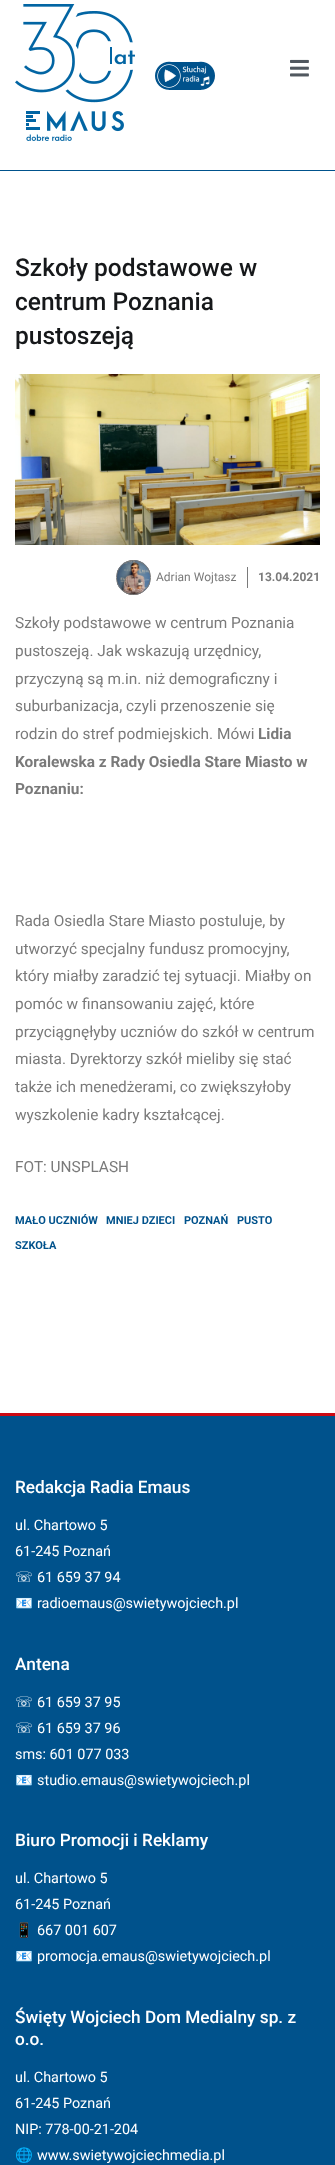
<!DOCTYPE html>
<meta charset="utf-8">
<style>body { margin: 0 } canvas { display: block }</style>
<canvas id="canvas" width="335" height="2165"></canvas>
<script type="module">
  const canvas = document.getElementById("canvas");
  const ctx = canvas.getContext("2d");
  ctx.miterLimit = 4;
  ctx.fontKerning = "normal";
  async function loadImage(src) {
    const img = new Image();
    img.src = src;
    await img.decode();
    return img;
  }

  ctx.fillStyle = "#ffffff";
  ctx.fillRect(0, 0, 335, 2165);
  ctx.fillStyle = "#00528c";
  ctx.fillRect(0, 170, 335, 1);
  ctx.drawImage(await loadImage("img1.png"), 15, 4, 120, 137);
  ctx.drawImage(await loadImage("img2.png"), 155, 61, 60, 29);
  ctx.drawImage(await loadImage("img3.png"), 290, 59, 19, 18);
  ctx.font = "500 24.5px Roboto";
  ctx.fillStyle = "#16181a";
  ctx.fillText("Szkoły podstawowe w", 15, 276);
  ctx.fillText("centrum Poznania", 15, 310);
  ctx.fillText("pustoszeją", 15, 344);
  ctx.drawImage(await loadImage("img4.png"), 15, 374, 305, 171);
  ctx.drawImage(await loadImage("img5.png"), 117, 560, 33, 35);
  ctx.beginPath();
  ctx.arc(133.5, 577.5, 17, 0, Math.PI * 2);
  ctx.strokeStyle = "#7a7a7a";
  ctx.stroke();
  ctx.fillStyle = "#7a7a7a";
  ctx.fillRect(247, 567, 1, 21);
  ctx.font = "12px Roboto";
  ctx.fillText("Adrian Wojtasz", 156, 581);
  ctx.font = "bold 12px Roboto";
  ctx.fillText("13.04.2021", 258, 581);
  ctx.font = "15.4px Roboto";
  ctx.fillText("Szkoły podstawowe w centrum Poznania", 15, 628);
  ctx.fillText("pustoszeją. Jak wskazują urzędnicy,", 15, 656);
  ctx.fillText("przyczyną są m.in. niż demograficzny i", 15, 684);
  ctx.fillText("suburbanizacja, czyli przenoszenie się", 15, 711);
  ctx.fillText("rodzin do stref podmiejskich. Mówi", 15, 739);
  ctx.font = "bold 15.4px Roboto";
  ctx.fillText("Lidia", 258, 739);
  ctx.fillText("Koralewska z Rady Osiedla Stare Miasto w", 15, 767);
  ctx.fillText("Poznaniu:", 15, 794);
  ctx.font = "15.4px Roboto";
  ctx.fillText("Rada Osiedla Stare Miasto postuluje, by", 15, 926);
  ctx.fillText("utworzyć specjalny fundusz promocyjny,", 15, 954);
  ctx.fillText("który miałby zaradzić tej sytuacji. Miałby on", 15, 981);
  ctx.fillText("pomóc w finansowaniu zajęć, które", 15, 1009);
  ctx.fillText("przyciągnęłyby uczniów do szkół w centrum", 15, 1037);
  ctx.fillText("miasta. Dyrektorzy szkół mieliby się stać", 15, 1064);
  ctx.fillText("także ich menedżerami, co zwiększyłoby", 15, 1092);
  ctx.fillText("wyszkolenie kadry kształcącej.", 15, 1120);
  ctx.fillText("FOT: UNSPLASH", 15, 1172);
  ctx.font = "bold 11px Roboto";
  ctx.fillStyle = "#00528c";
  ctx.fillText("MAŁO UCZNIÓW", 15, 1224);
  ctx.fillText("MNIEJ DZIECI", 106, 1224);
  ctx.fillText("POZNAŃ", 184, 1224);
  ctx.fillText("PUSTO", 237, 1224);
  ctx.fillText("SZKOŁA", 15, 1249);
  ctx.fillRect(0, 1416, 335, 749);
  ctx.fillStyle = "#cd0913";
  ctx.fillRect(0, 1413, 335, 3);
  ctx.font = "500 17.25px Roboto";
  ctx.fillStyle = "#ffffff";
  ctx.fillText("Redakcja Radia Emaus", 15, 1493);
  ctx.font = "14.4px Roboto";
  ctx.fillText("ul. Chartowo 5", 15, 1530);
  ctx.fillText("61-245 Poznań", 15, 1556);
  ctx.font = "14.4px DejaVu Sans";
  ctx.fillText("☏", 15, 1582);
  ctx.font = "14.4px Roboto";
  ctx.fillText("61 659 37 94", 37, 1582);
  ctx.font = "14.4px Noto Color Emoji";
  ctx.fillText("📧", 15, 1608);
  ctx.font = "14.4px Roboto";
  ctx.fillText("radioemaus@swietywojciech.pl", 37, 1608);
  ctx.font = "500 17.25px Roboto";
  ctx.fillText("Antena", 15, 1670);
  ctx.font = "14.4px DejaVu Sans";
  ctx.fillText("☏", 15, 1707);
  ctx.font = "14.4px Roboto";
  ctx.fillText("61 659 37 95", 37, 1707);
  ctx.font = "14.4px DejaVu Sans";
  ctx.fillText("☏", 15, 1733);
  ctx.font = "14.4px Roboto";
  ctx.fillText("61 659 37 96", 37, 1733);
  ctx.fillText("sms: 601 077 033", 15, 1759);
  ctx.font = "14.4px Noto Color Emoji";
  ctx.fillText("📧", 15, 1785);
  ctx.font = "14.4px Roboto";
  ctx.fillText("studio.emaus@swietywojciech.pl", 37, 1785);
  ctx.font = "500 17.25px Roboto";
  ctx.fillText("Biuro Promocji i Reklamy", 15, 1846);
  ctx.font = "14.4px Roboto";
  ctx.fillText("ul. Chartowo 5", 15, 1883);
  ctx.fillText("61-245 Poznań", 15, 1909);
  ctx.font = "14.4px Noto Color Emoji";
  ctx.fillText("📱", 15, 1935);
  ctx.font = "14.4px Roboto";
  ctx.fillText("667 001 607", 37, 1935);
  ctx.font = "14.4px Noto Color Emoji";
  ctx.fillText("📧", 15, 1961);
  ctx.font = "14.4px Roboto";
  ctx.fillText("promocja.emaus@swietywojciech.pl", 37, 1961);
  ctx.font = "500 17.25px Roboto";
  ctx.fillText("Święty Wojciech Dom Medialny sp. z", 15, 2023);
  ctx.fillText("o.o.", 15, 2045);
  ctx.font = "14.4px Roboto";
  ctx.fillText("ul. Chartowo 5", 15, 2082);
  ctx.fillText("61-245 Poznań", 15, 2108);
  ctx.fillText("NIP: 778-00-21-204", 15, 2134);
  ctx.font = "14.4px Noto Color Emoji";
  ctx.fillText("🌐", 15, 2160);
  ctx.font = "14.4px Roboto";
  ctx.fillText("www.swietywojciechmedia.pl", 37, 2160);
</script>
